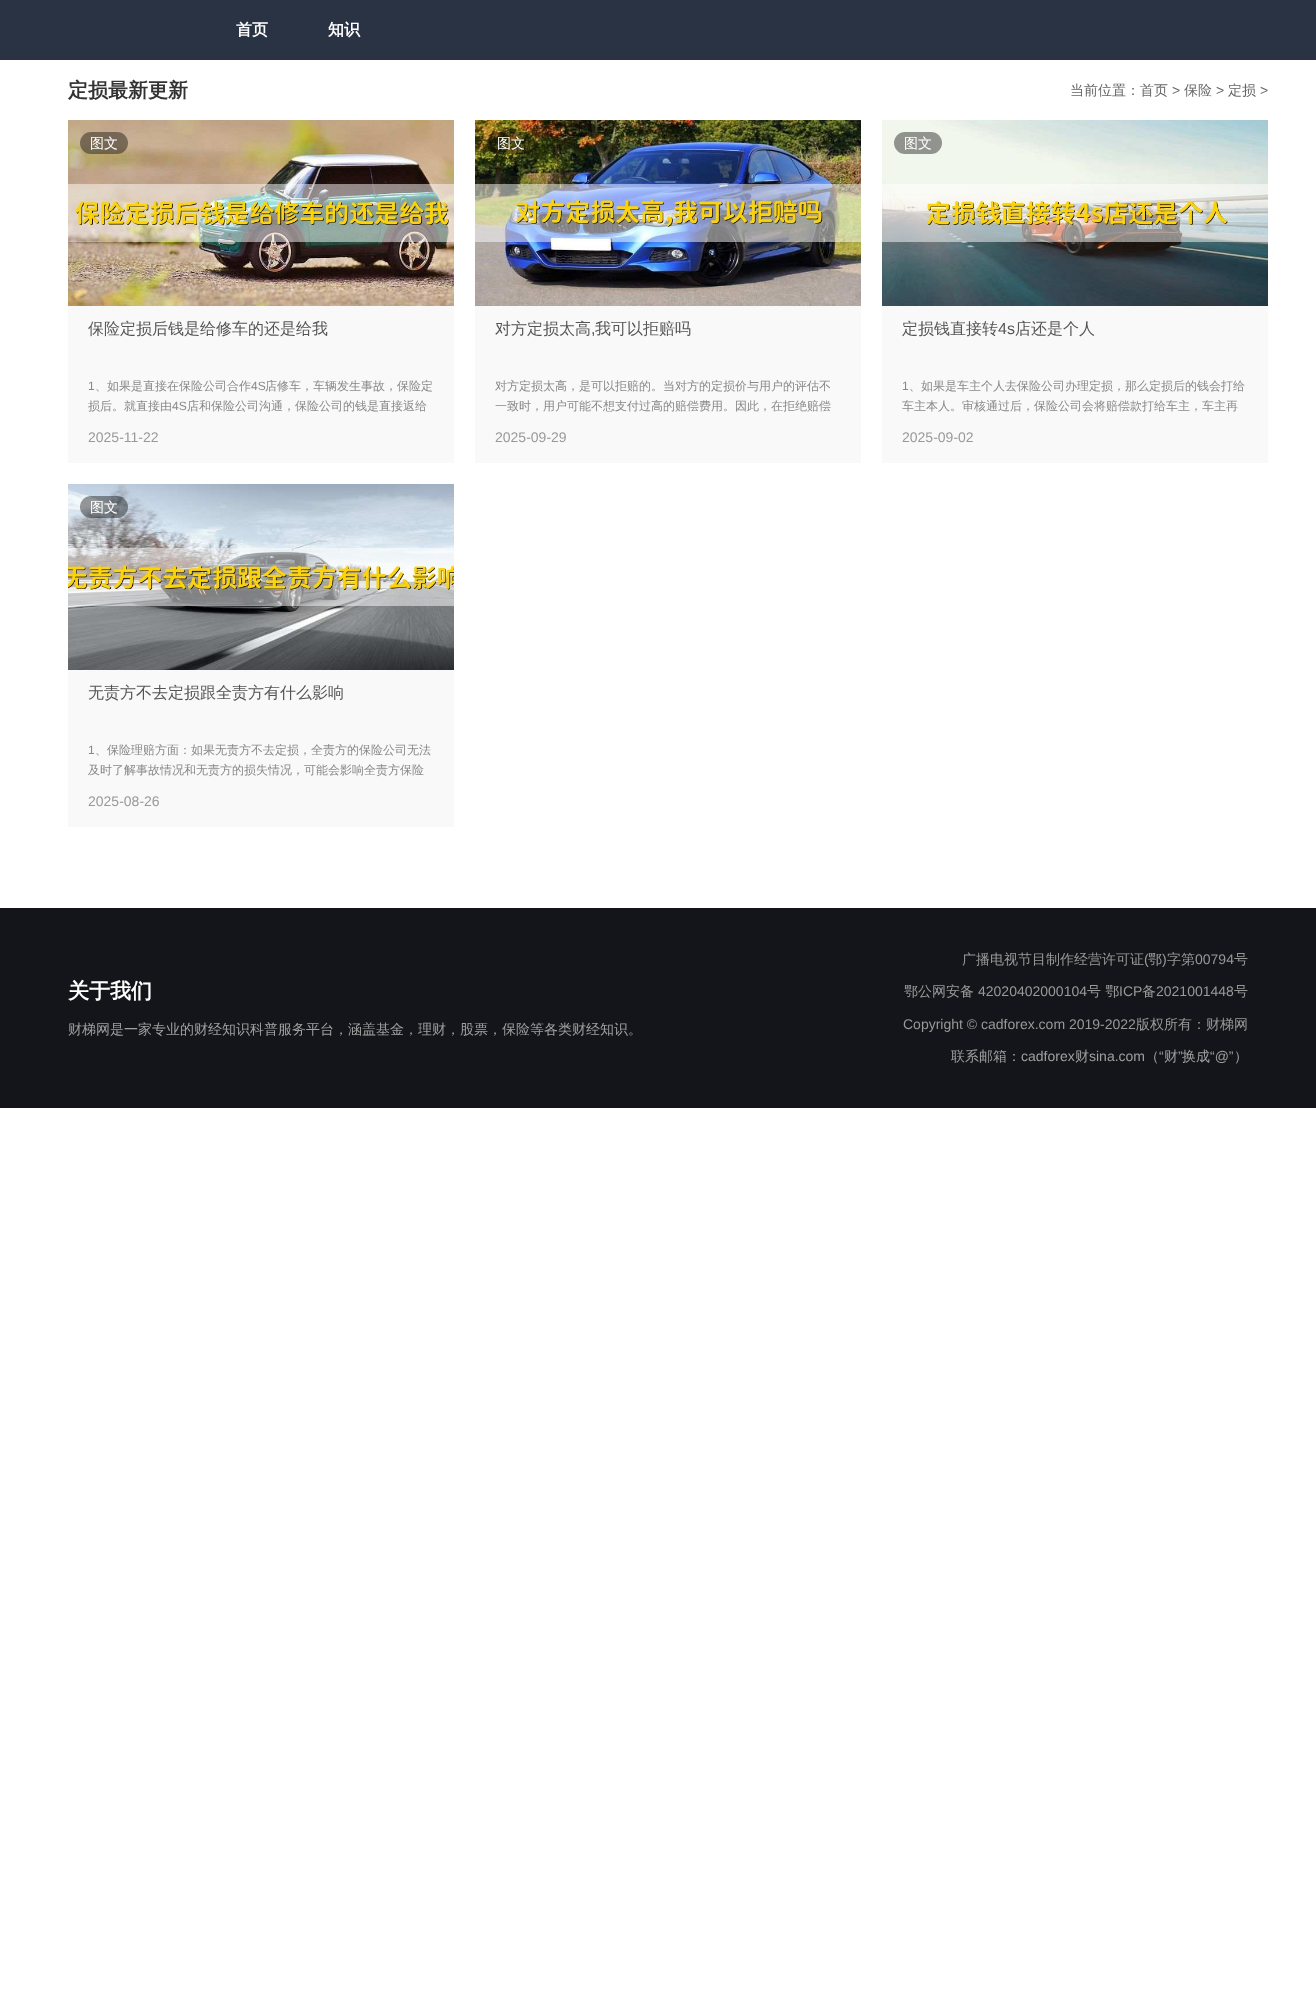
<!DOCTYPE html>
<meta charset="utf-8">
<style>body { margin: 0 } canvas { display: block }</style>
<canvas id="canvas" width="1316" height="1995"></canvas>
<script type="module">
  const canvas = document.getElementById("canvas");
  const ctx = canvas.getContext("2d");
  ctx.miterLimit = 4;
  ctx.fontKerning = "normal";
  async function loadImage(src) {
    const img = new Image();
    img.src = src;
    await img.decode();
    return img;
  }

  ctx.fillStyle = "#ffffff";
  ctx.fillRect(0, 0, 1316, 1995);
  ctx.fillStyle = "#2a3343";
  ctx.fillRect(0, 0, 1316, 60);
  ctx.font = "bold 16px WenQuanYi Zen Hei";
  ctx.fillStyle = "#ffffff";
  ctx.fillText("首页", 236, 35);
  ctx.fillText("知识", 328, 35);
  ctx.font = "bold 20px WenQuanYi Zen Hei";
  ctx.fillStyle = "#333333";
  ctx.fillText("定损最新更新", 68, 97);
  ctx.font = "500 14px WenQuanYi Zen Hei";
  ctx.fillStyle = "#666666";
  ctx.fillText("当前位置：首页", 1070, 95);
  ctx.font = "14px Liberation Sans";
  ctx.fillText(">", 1172, 95);
  ctx.font = "500 14px WenQuanYi Zen Hei";
  ctx.fillText("保险", 1184, 95);
  ctx.font = "14px Liberation Sans";
  ctx.fillText(">", 1216, 95);
  ctx.font = "500 14px WenQuanYi Zen Hei";
  ctx.fillText("定损", 1228, 95);
  ctx.font = "14px Liberation Sans";
  ctx.fillText(">", 1260, 95);
  ctx.fillStyle = "#f9f9f9";
  ctx.fillRect(68, 306, 386, 157);
  ctx.drawImage(await loadImage("img1.png"), 68, 120, 386, 186);
  ctx.fillStyle = "rgba(0, 0, 0, 0.4)";
  ctx.beginPath();
  ctx.roundRect(80, 132, 48, 22, 11);
  ctx.fill();
  ctx.font = "500 14px WenQuanYi Zen Hei";
  ctx.fillStyle = "#ffffff";
  ctx.fillText("图文", 90, 148);
  ctx.font = "500 16px WenQuanYi Zen Hei";
  ctx.fillStyle = "#555555";
  ctx.fillText("保险定损后钱是给修车的还是给我", 88, 334);
  ctx.font = "12px Liberation Sans";
  ctx.fillStyle = "#888888";
  ctx.fillText("1", 88, 390);
  ctx.font = "500 12px WenQuanYi Zen Hei";
  ctx.fillText("、如果是直接在保险公司合作", 95, 390);
  ctx.font = "12px Liberation Sans";
  ctx.fillText("4S", 251, 390);
  ctx.font = "500 12px WenQuanYi Zen Hei";
  ctx.fillText("店修车，车辆发生事故，保险定", 265, 390);
  ctx.fillText("损后。就直接由", 88, 410);
  ctx.font = "12px Liberation Sans";
  ctx.fillText("4S", 172, 410);
  ctx.font = "500 12px WenQuanYi Zen Hei";
  ctx.fillText("店和保险公司沟通，保险公司的钱是直接返给", 187, 410);
  ctx.font = "14px Liberation Sans";
  ctx.fillStyle = "#999999";
  ctx.fillText("2025-11-22", 88, 442);
  ctx.fillStyle = "#f9f9f9";
  ctx.fillRect(475, 306, 386, 157);
  ctx.drawImage(await loadImage("img2.png"), 475, 120, 386, 186);
  ctx.fillStyle = "rgba(0, 0, 0, 0.4)";
  ctx.beginPath();
  ctx.roundRect(487, 132, 48, 22, 11);
  ctx.fill();
  ctx.font = "500 14px WenQuanYi Zen Hei";
  ctx.fillStyle = "#ffffff";
  ctx.fillText("图文", 497, 148);
  ctx.font = "500 16px WenQuanYi Zen Hei";
  ctx.fillStyle = "#555555";
  ctx.fillText("对方定损太高", 495, 334);
  ctx.font = "16px Liberation Sans";
  ctx.fillText(",", 591, 334);
  ctx.font = "500 16px WenQuanYi Zen Hei";
  ctx.fillText("我可以拒赔吗", 595, 334);
  ctx.font = "500 12px WenQuanYi Zen Hei";
  ctx.fillStyle = "#888888";
  ctx.fillText("对方定损太高，是可以拒赔的。当对方的定损价与用户的评估不", 495, 390);
  ctx.fillText("一致时，用户可能不想支付过高的赔偿费用。因此，在拒绝赔偿", 495, 410);
  ctx.font = "14px Liberation Sans";
  ctx.fillStyle = "#999999";
  ctx.fillText("2025-09-29", 495, 442);
  ctx.fillStyle = "#f9f9f9";
  ctx.fillRect(882, 306, 386, 157);
  ctx.drawImage(await loadImage("img3.png"), 882, 120, 386, 186);
  ctx.fillStyle = "#91948e";
  ctx.beginPath();
  ctx.roundRect(894, 132, 48, 22, 11);
  ctx.fill();
  ctx.font = "500 14px WenQuanYi Zen Hei";
  ctx.fillStyle = "#ffffff";
  ctx.fillText("图文", 904, 148);
  ctx.font = "500 16px WenQuanYi Zen Hei";
  ctx.fillStyle = "#555555";
  ctx.fillText("定损钱直接转", 902, 334);
  ctx.font = "16px Liberation Sans";
  ctx.fillText("4s", 998, 334);
  ctx.font = "500 16px WenQuanYi Zen Hei";
  ctx.fillText("店还是个人", 1015, 334);
  ctx.font = "12px Liberation Sans";
  ctx.fillStyle = "#888888";
  ctx.fillText("1", 902, 390);
  ctx.font = "500 12px WenQuanYi Zen Hei";
  ctx.fillText("、如果是车主个人去保险公司办理定损，那么定损后的钱会打给", 909, 390);
  ctx.fillText("车主本人。审核通过后，保险公司会将赔偿款打给车主，车主再", 902, 410);
  ctx.font = "14px Liberation Sans";
  ctx.fillStyle = "#999999";
  ctx.fillText("2025-09-02", 902, 442);
  ctx.fillStyle = "#f9f9f9";
  ctx.fillRect(68, 670, 386, 157);
  ctx.drawImage(await loadImage("img4.png"), 68, 484, 386, 186);
  ctx.fillStyle = "rgba(0, 0, 0, 0.4)";
  ctx.beginPath();
  ctx.roundRect(80, 496, 48, 22, 11);
  ctx.fill();
  ctx.font = "500 14px WenQuanYi Zen Hei";
  ctx.fillStyle = "#ffffff";
  ctx.fillText("图文", 90, 512);
  ctx.font = "500 16px WenQuanYi Zen Hei";
  ctx.fillStyle = "#555555";
  ctx.fillText("无责方不去定损跟全责方有什么影响", 88, 698);
  ctx.font = "12px Liberation Sans";
  ctx.fillStyle = "#888888";
  ctx.fillText("1", 88, 754);
  ctx.font = "500 12px WenQuanYi Zen Hei";
  ctx.fillText("、保险理赔方面：如果无责方不去定损，全责方的保险公司无法", 95, 754);
  ctx.fillText("及时了解事故情况和无责方的损失情况，可能会影响全责方保险", 88, 774);
  ctx.font = "14px Liberation Sans";
  ctx.fillStyle = "#999999";
  ctx.fillText("2025-08-26", 88, 806);
  ctx.fillStyle = "#14151a";
  ctx.fillRect(0, 908, 1316, 200);
  ctx.font = "bold 21px WenQuanYi Zen Hei";
  ctx.fillStyle = "#ffffff";
  ctx.fillText("关于我们", 68, 998);
  ctx.font = "500 14px WenQuanYi Zen Hei";
  ctx.fillStyle = "#a0a0a1";
  ctx.fillText("财梯网是一家专业的财经知识科普服务平台，涵盖基金，理财，股票，保险等各类财经知识。", 68, 1034);
  ctx.fillStyle = "#999999";
  ctx.fillText("广播电视节目制作经营许可证", 962, 964);
  ctx.font = "14px Liberation Sans";
  ctx.fillText("(", 1144, 964);
  ctx.font = "500 14px WenQuanYi Zen Hei";
  ctx.fillText("鄂", 1148, 964);
  ctx.font = "14px Liberation Sans";
  ctx.fillText(")", 1162, 964);
  ctx.font = "500 14px WenQuanYi Zen Hei";
  ctx.fillText("字第", 1167, 964);
  ctx.font = "14px Liberation Sans";
  ctx.fillText("00794", 1195, 964);
  ctx.font = "500 14px WenQuanYi Zen Hei";
  ctx.fillText("号", 1234, 964);
  ctx.fillText("鄂公网安备", 904, 996);
  ctx.font = "14px Liberation Sans";
  ctx.fillText("42020402000104", 978, 996);
  ctx.font = "500 14px WenQuanYi Zen Hei";
  ctx.fillText("号 鄂", 1087, 996);
  ctx.font = "14px Liberation Sans";
  ctx.fillText("ICP", 1119, 996);
  ctx.font = "500 14px WenQuanYi Zen Hei";
  ctx.fillText("备", 1142, 996);
  ctx.font = "14px Liberation Sans";
  ctx.fillText("2021001448", 1156, 996);
  ctx.font = "500 14px WenQuanYi Zen Hei";
  ctx.fillText("号", 1234, 996);
  ctx.font = "14px Liberation Sans";
  ctx.fillText("Copyright © cadforex.com 2019-2022", 903, 1029);
  ctx.font = "500 14px WenQuanYi Zen Hei";
  ctx.fillText("版权所有：财梯网", 1136, 1029);
  ctx.fillStyle = "#a0a0a1";
  ctx.fillText("联系邮箱：", 951, 1061);
  ctx.font = "14px Liberation Sans";
  ctx.fillText("cadforex", 1021, 1061);
  ctx.font = "500 14px WenQuanYi Zen Hei";
  ctx.fillText("财", 1075, 1061);
  ctx.font = "14px Liberation Sans";
  ctx.fillText("sina.com", 1089, 1061);
  ctx.font = "500 14px WenQuanYi Zen Hei";
  ctx.fillText("（", 1145, 1061);
  ctx.font = "14px Liberation Sans";
  ctx.fillText("“", 1159, 1061);
  ctx.font = "500 14px WenQuanYi Zen Hei";
  ctx.fillText("财", 1164, 1061);
  ctx.font = "14px Liberation Sans";
  ctx.fillText("”", 1178, 1061);
  ctx.font = "500 14px WenQuanYi Zen Hei";
  ctx.fillText("换成", 1182, 1061);
  ctx.font = "14px Liberation Sans";
  ctx.fillText("“@”", 1210, 1061);
  ctx.font = "500 14px WenQuanYi Zen Hei";
  ctx.fillText("）", 1234, 1061);
</script>
